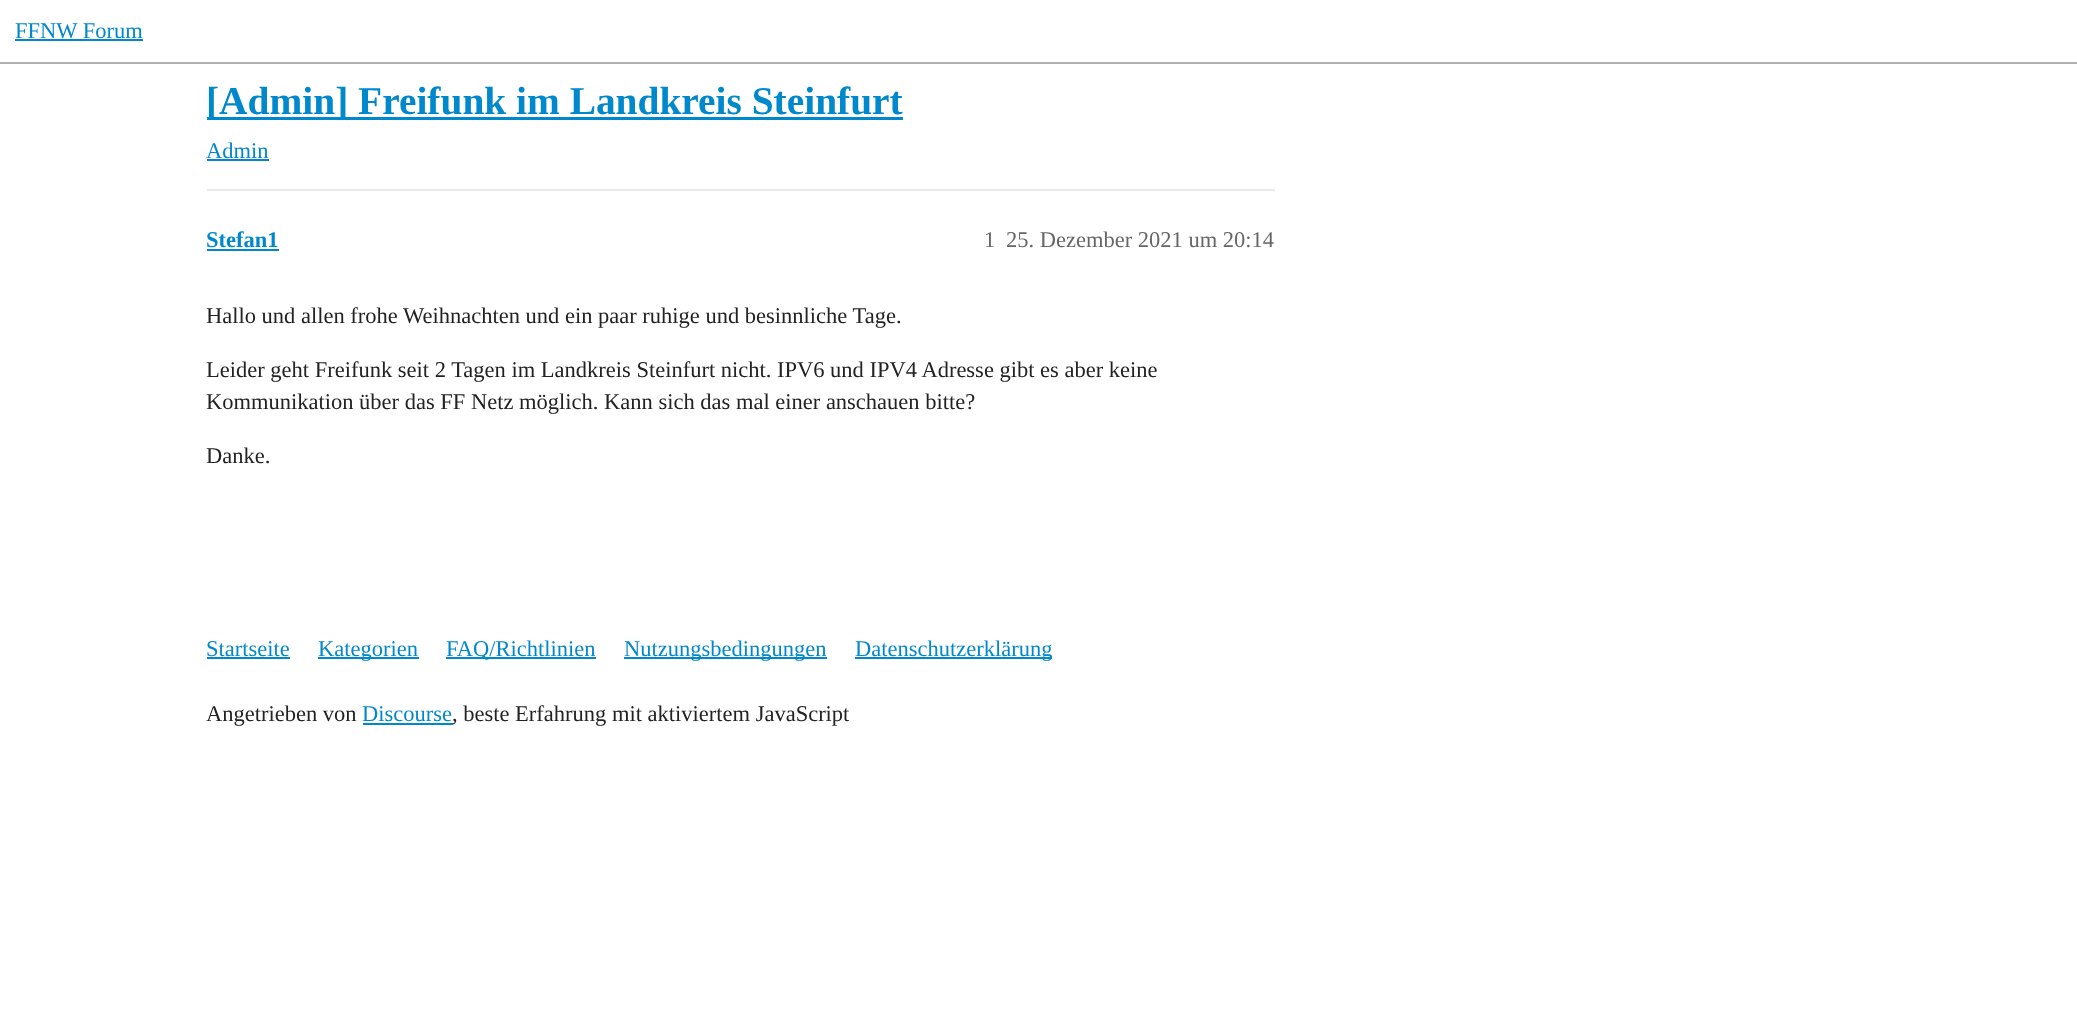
<!DOCTYPE html>
<meta charset="utf-8">
<style>body { margin: 0 } canvas { display: block }</style>
<canvas id="canvas" width="2077" height="1036"></canvas>
<script type="module">
  const canvas = document.getElementById("canvas");
  const ctx = canvas.getContext("2d");
  ctx.miterLimit = 4;
  ctx.fontKerning = "normal";

  ctx.fillStyle = "#ffffff";
  ctx.fillRect(0, 0, 2077, 1036);
  ctx.fillStyle = "#afafaf";
  ctx.fillRect(0, 62, 2077, 2);
  ctx.font = "22.5px Liberation Serif";
  ctx.fillStyle = "#0088cc";
  ctx.fillText("FFNW Forum", 15, 38);
  ctx.fillRect(15, 39, 128, 2);
  ctx.fillRect(207, 117, 696, 3);
  ctx.font = "bold 39.4px Liberation Serif";
  ctx.fillText("[Admin] Freifunk im Landkreis Steinfurt", 206, 114);
  ctx.font = "22.5px Liberation Serif";
  ctx.fillText("Admin", 206, 158);
  ctx.fillRect(207, 159, 62, 2);
  ctx.fillStyle = "#e9e9e9";
  ctx.fillRect(207, 189, 1068, 2);
  ctx.font = "bold 22.5px Liberation Serif";
  ctx.fillStyle = "#0088cc";
  ctx.fillText("Stefan1", 206, 247);
  ctx.fillRect(207, 249, 72, 2);
  ctx.font = "22.5px Liberation Serif";
  ctx.fillStyle = "#666666";
  ctx.fillText("1", 984, 247);
  ctx.fillText("25. Dezember 2021 um 20:14", 1006, 247);
  ctx.fillStyle = "#222222";
  ctx.fillText("Hallo und allen frohe Weihnachten und ein paar ruhige und besinnliche Tage.", 206, 323);
  ctx.fillText("Leider geht Freifunk seit 2 Tagen im Landkreis Steinfurt nicht. IPV6 und IPV4 Adresse gibt es aber keine", 206, 377);
  ctx.fillText("Kommunikation über das FF Netz möglich. Kann sich das mal einer anschauen bitte?", 206, 409);
  ctx.fillText("Danke.", 206, 463);
  ctx.fillStyle = "#0088cc";
  ctx.fillText("Startseite", 206, 656);
  ctx.fillRect(207, 657, 83, 2);
  ctx.fillRect(318, 657, 101, 2);
  ctx.fillText("Kategorien", 318, 656);
  ctx.fillRect(446, 657, 150, 2);
  ctx.fillText("FAQ/Richtlinien", 446, 656);
  ctx.fillRect(624, 657, 203, 2);
  ctx.fillText("Nutzungsbedingungen", 624, 656);
  ctx.fillRect(855, 657, 197, 2);
  ctx.fillText("Datenschutzerklärung", 855, 656);
  ctx.fillStyle = "#222222";
  ctx.fillText("Angetrieben von", 206, 721);
  ctx.fillStyle = "#0088cc";
  ctx.fillText("Discourse", 362, 721);
  ctx.fillRect(363, 723, 90, 2);
  ctx.fillStyle = "#222222";
  ctx.fillText(", beste Erfahrung mit aktiviertem JavaScript", 452, 721);
</script>
